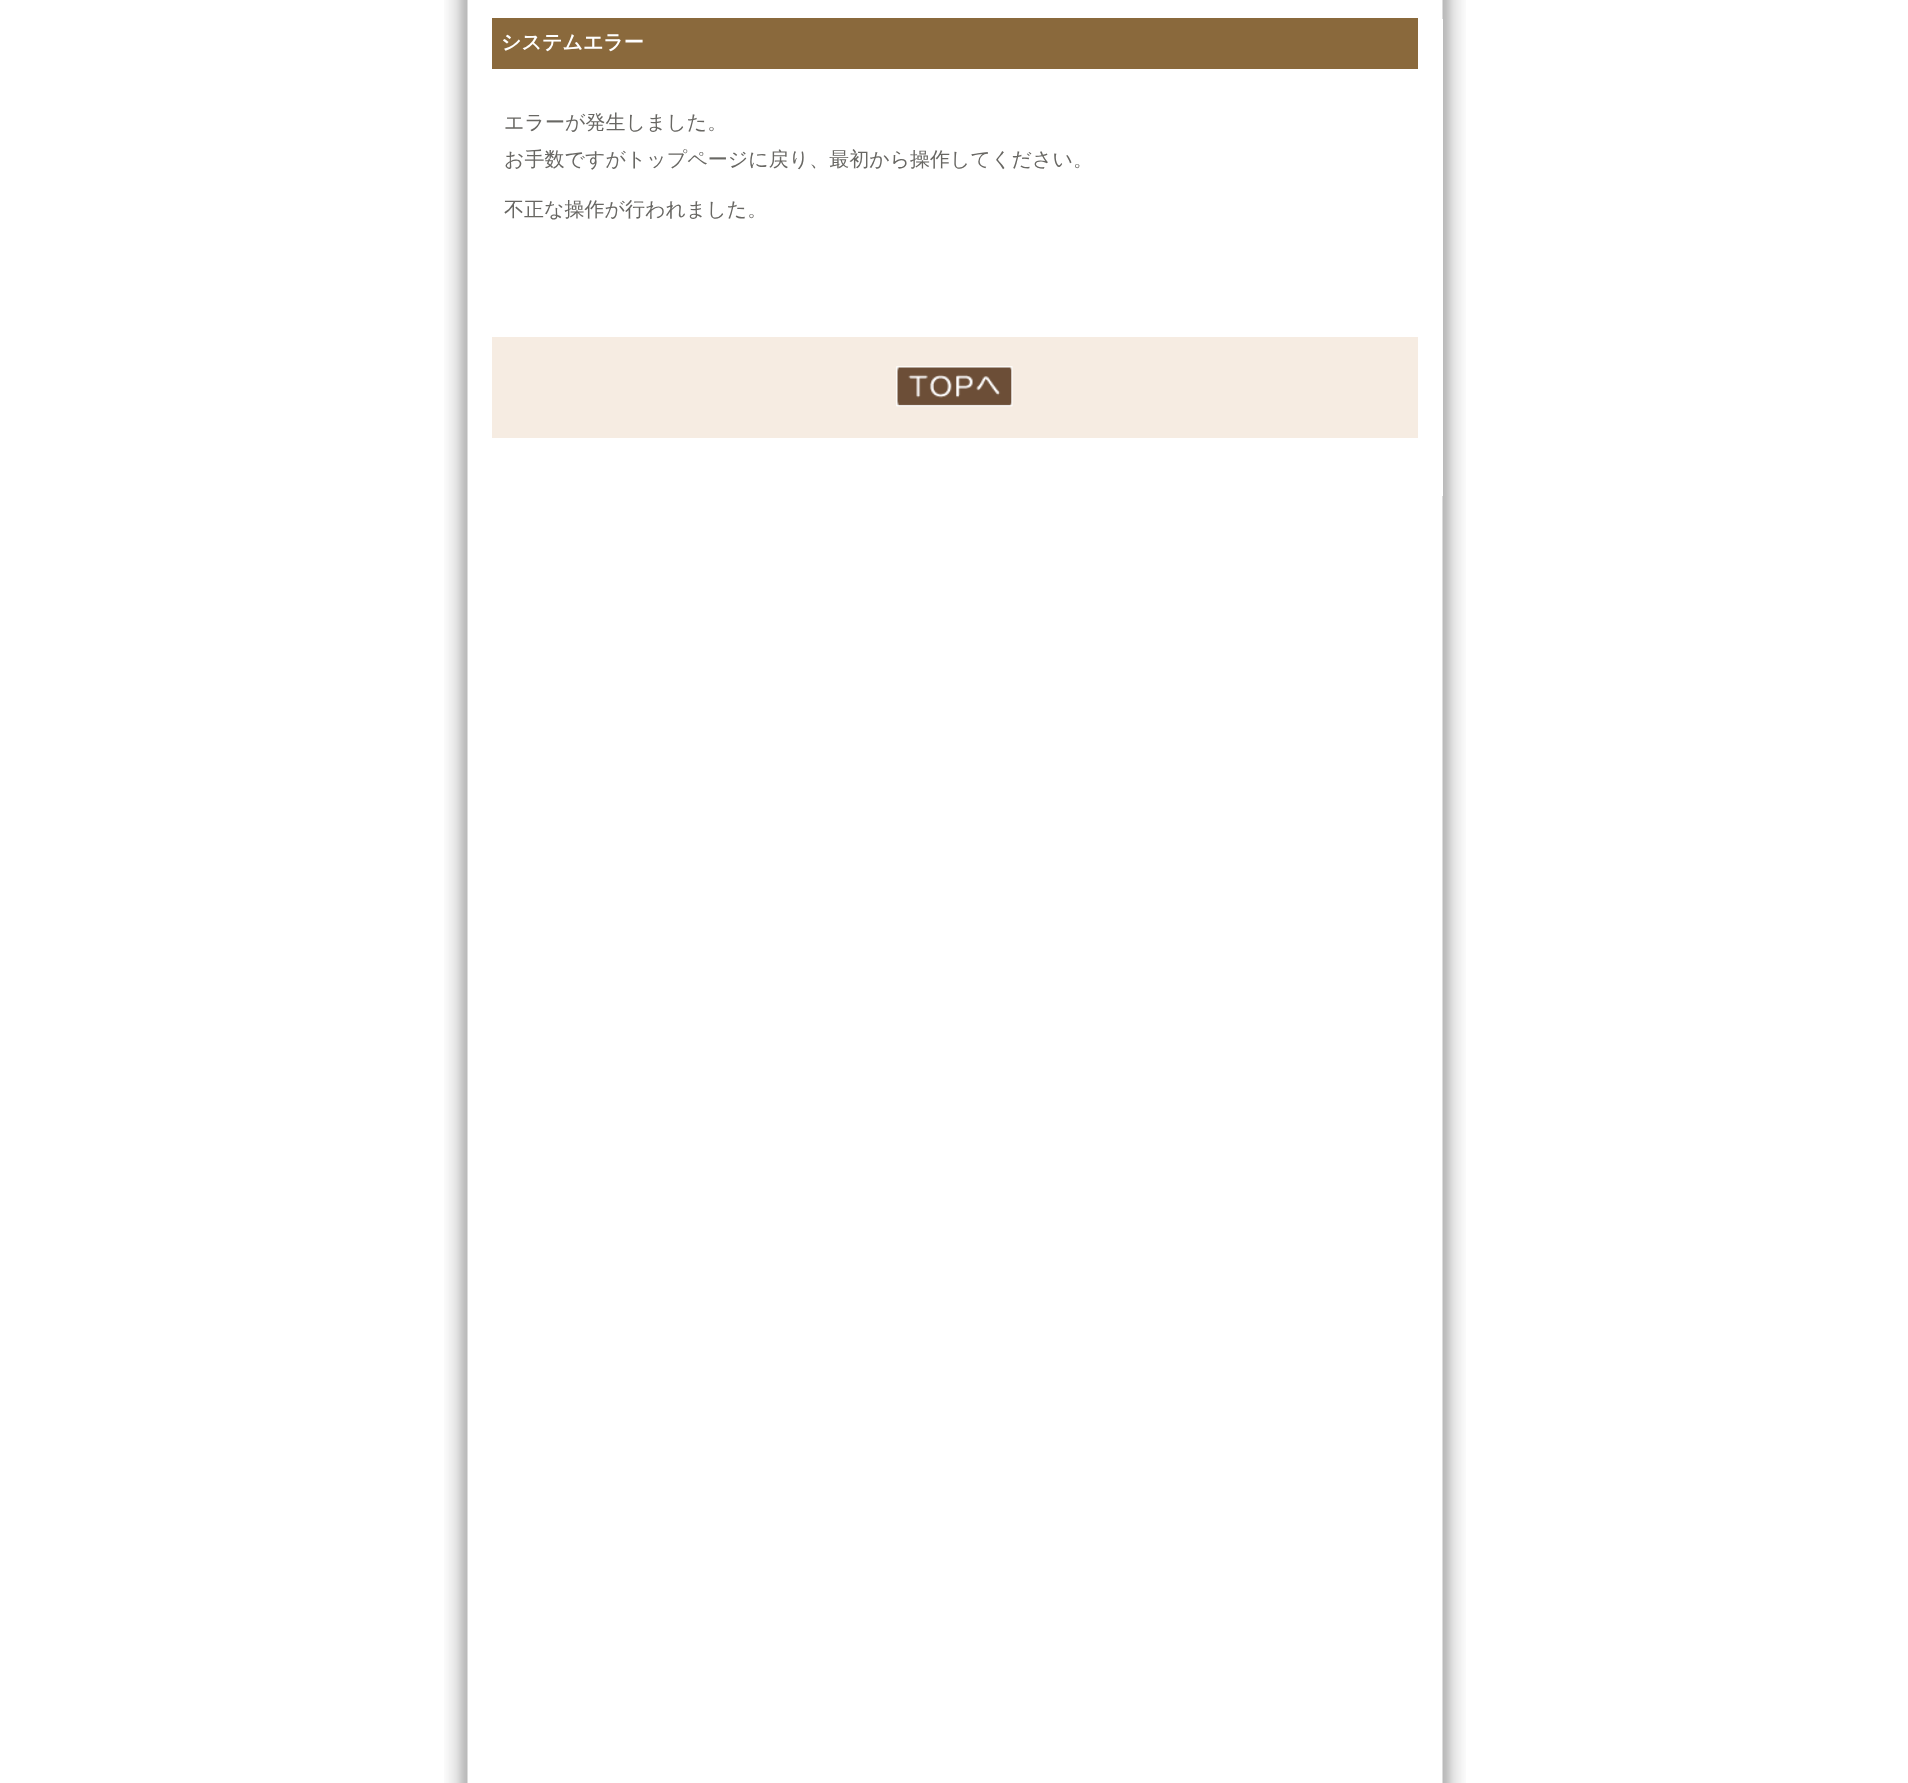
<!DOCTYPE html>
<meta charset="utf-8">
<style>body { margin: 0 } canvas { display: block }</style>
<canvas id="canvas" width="1908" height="1783"></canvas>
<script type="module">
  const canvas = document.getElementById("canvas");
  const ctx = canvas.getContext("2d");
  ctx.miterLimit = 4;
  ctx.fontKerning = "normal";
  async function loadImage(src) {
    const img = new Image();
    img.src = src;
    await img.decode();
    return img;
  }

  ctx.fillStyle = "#ffffff";
  ctx.fillRect(0, 0, 1908, 1783);
  ctx.drawImage(await loadImage("img1.png"), 444, 0, 1022, 1783);
  ctx.fillRect(1442, 19, 1, 477);
  ctx.fillStyle = "#8a693c";
  ctx.fillRect(492, 18, 926, 51);
  ctx.font = "bold 20px WenQuanYi Zen Hei";
  ctx.fillStyle = "#ffffff";
  ctx.fillText("システムエラー", 501, 49);
  ctx.font = "500 20px WenQuanYi Zen Hei";
  ctx.fillStyle = "#686763";
  ctx.fillText("エラーが発生しました。", 504, 129);
  ctx.fillText("お手数ですがトップページに戻り、最初から操作してください。", 504, 166);
  ctx.fillText("不正な操作が行われました。", 504, 216);
  ctx.fillStyle = "#f6ece2";
  ctx.fillRect(492, 337, 926, 101);
  ctx.drawImage(await loadImage("img2.png"), 896, 366, 117, 41);
</script>
